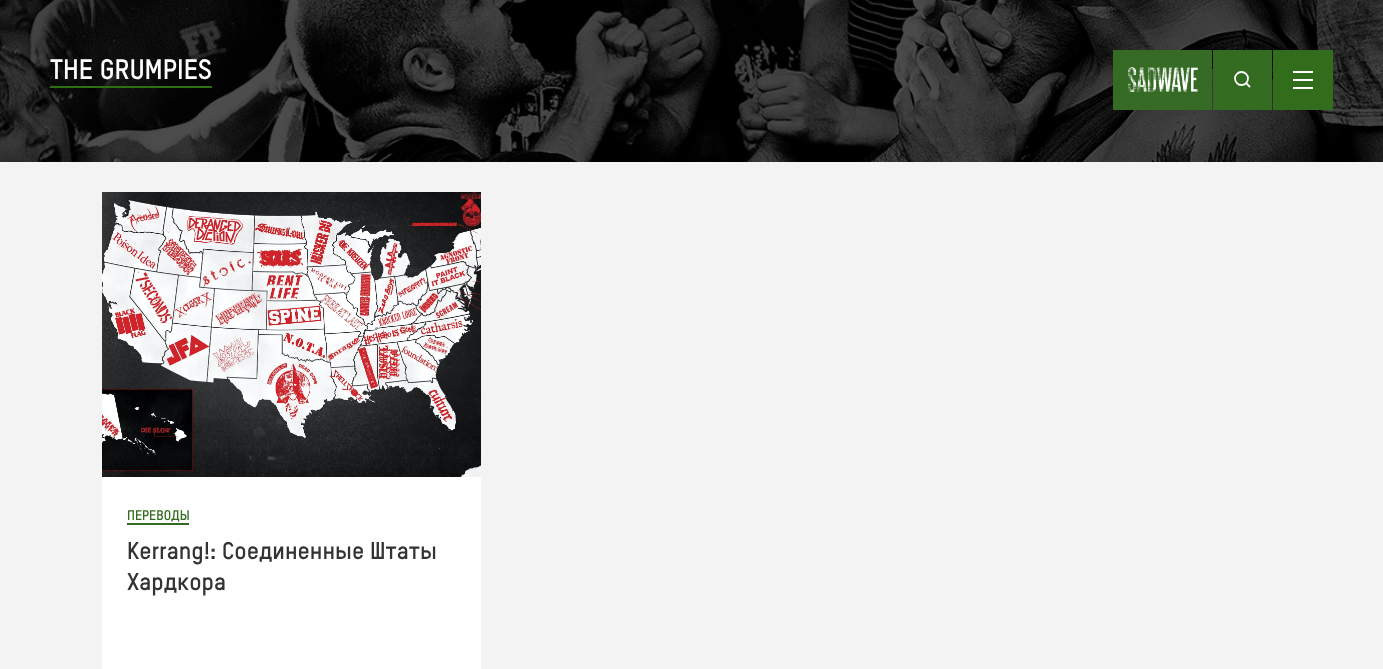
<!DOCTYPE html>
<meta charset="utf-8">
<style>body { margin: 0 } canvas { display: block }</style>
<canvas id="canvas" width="1383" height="669"></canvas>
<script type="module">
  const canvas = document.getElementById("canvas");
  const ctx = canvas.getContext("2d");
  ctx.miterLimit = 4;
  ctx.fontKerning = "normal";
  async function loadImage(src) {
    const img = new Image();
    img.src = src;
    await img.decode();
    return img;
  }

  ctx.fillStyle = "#f3f3f3";
  ctx.fillRect(0, 0, 1383, 669);
  ctx.drawImage(await loadImage("img1.png"), 0, 0, 1383, 162);
  ctx.fillStyle = "#2f6e12";
  ctx.fillRect(50, 86, 162, 2);
  ctx.font = "bold 28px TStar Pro";
  ctx.fillStyle = "#ffffff";
  ctx.fillText("THE GRUMPIES", 50, 79);
  ctx.fillStyle = "#356b25";
  ctx.fillRect(1113, 50, 99, 60);
  ctx.drawImage(await loadImage("img2.png"), 1128, 67, 70, 25);
  ctx.fillStyle = "#336c20";
  ctx.fillRect(1213, 50, 59, 60);
  ctx.beginPath();
  ctx.arc(1241.5, 78.5, 6.5, 0, Math.PI * 2);
  ctx.strokeStyle = "#ffffff";
  ctx.lineWidth = 1.8;
  ctx.stroke();
  ctx.beginPath();
  ctx.moveTo(1246.5, 83.5);
  ctx.lineTo(1250, 87);
  ctx.stroke();
  ctx.fillStyle = "#316d1a";
  ctx.fillRect(1273, 50, 60, 60);
  ctx.fillStyle = "#ffffff";
  ctx.fillRect(1293, 71, 20, 2);
  ctx.fillRect(1293, 79, 20, 2);
  ctx.fillRect(1293, 87, 20, 2);
  ctx.drawImage(await loadImage("img3.png"), 102, 192, 379, 285);
  ctx.fillRect(102, 477, 379, 192);
  ctx.font = "bold 14px TStar Pro";
  ctx.fillStyle = "#336c20";
  ctx.fillText("ПЕРЕВОДЫ", 127, 520);
  ctx.fillRect(127, 523, 62, 2);
  ctx.font = "bold 24px TStar Pro";
  ctx.fillStyle = "#333333";
  ctx.fillText("Kerrang!: Соединенные Штаты", 127, 559);
  ctx.fillText("Хардкора", 127, 590);
</script>
